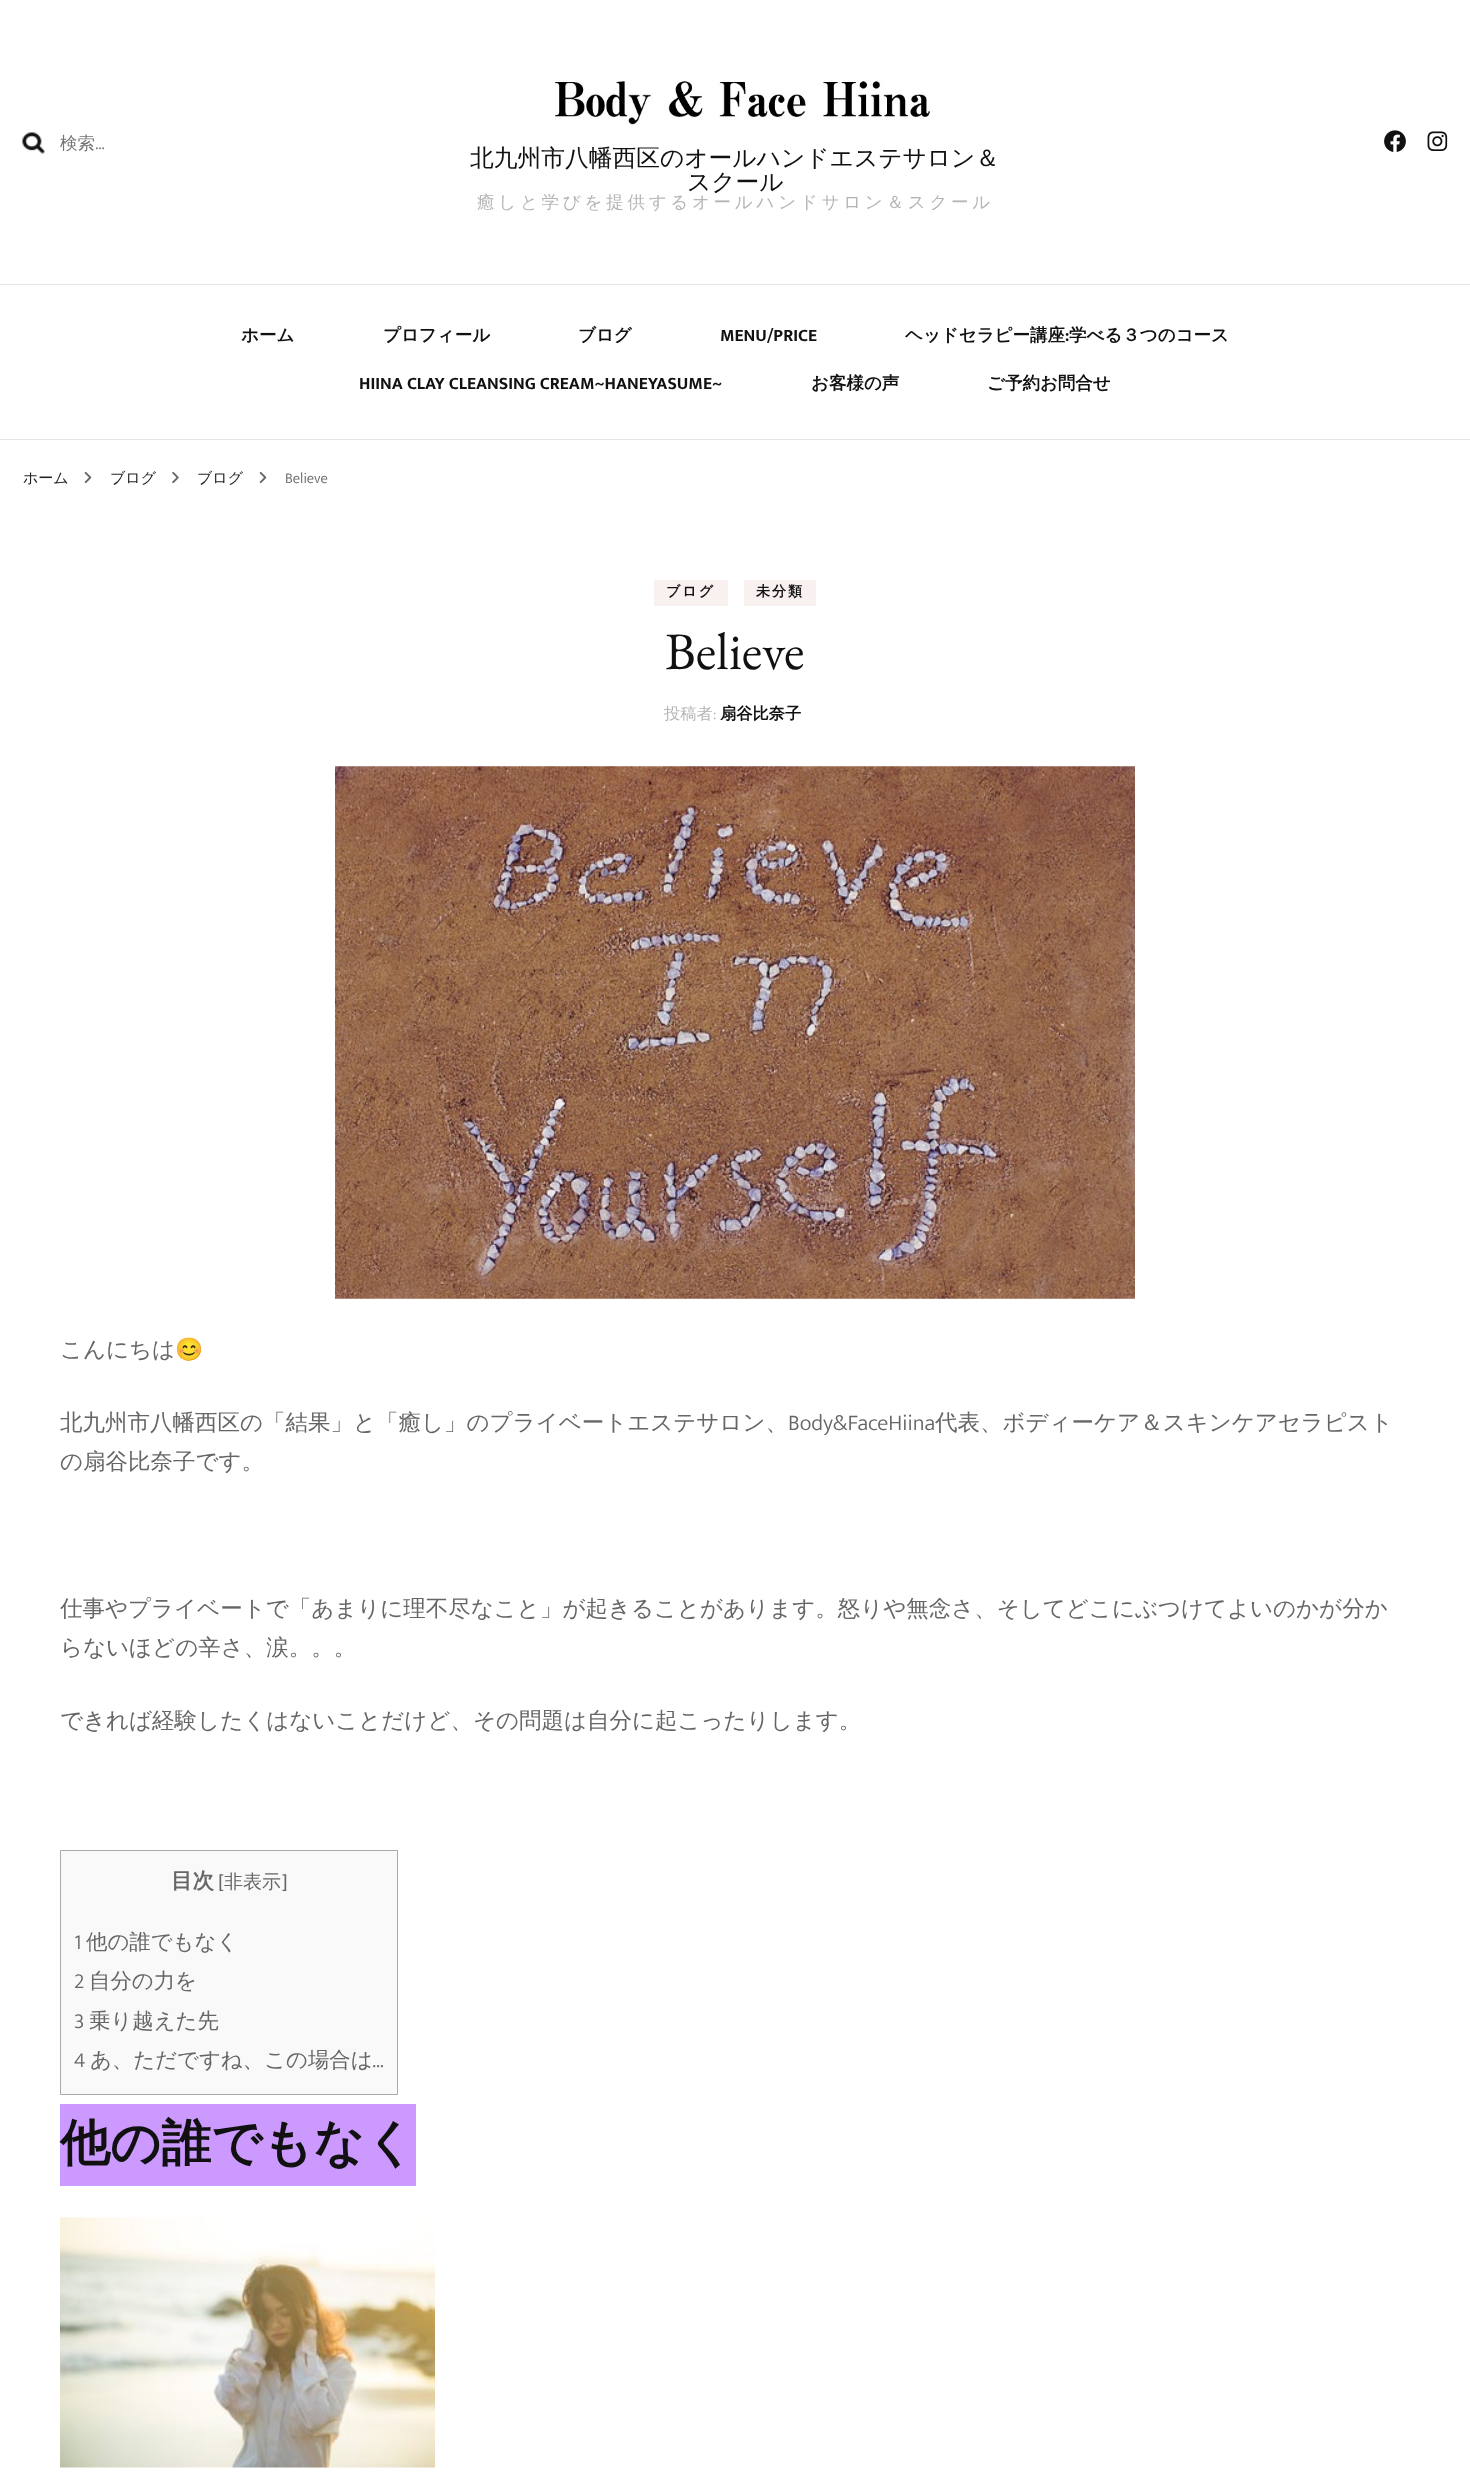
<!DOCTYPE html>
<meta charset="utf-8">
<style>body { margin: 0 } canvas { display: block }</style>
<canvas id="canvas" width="1470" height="2476"></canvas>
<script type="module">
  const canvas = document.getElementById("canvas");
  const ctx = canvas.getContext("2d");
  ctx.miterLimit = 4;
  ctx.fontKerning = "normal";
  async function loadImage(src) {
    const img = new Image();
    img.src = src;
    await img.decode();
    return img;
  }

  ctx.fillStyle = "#ffffff";
  ctx.fillRect(0, 0, 1470, 2476);
  ctx.drawImage(await loadImage("img1.png"), 22, 132, 23, 22);
  ctx.font = "500 17.5px WenQuanYi Zen Hei";
  ctx.fillStyle = "#757575";
  ctx.fillText("検索", 60, 149);
  ctx.font = "300 17.5px Mukta";
  ctx.fillText("…", 95, 149);
  ctx.drawImage(await loadImage("img2.png"), 1384, 130, 22, 22);
  ctx.drawImage(await loadImage("img3.png"), 1427, 131, 21, 20);
  ctx.drawImage(await loadImage("img4.png"), 555, 81, 375, 44);
  ctx.font = "500 23.75px WenQuanYi Zen Hei";
  ctx.fillStyle = "#111111";
  ctx.fillText("北九州市八幡西区のオールハンドエステサロン＆", 470, 166);
  ctx.fillText("スクール", 687, 190);
  ctx.letterSpacing = "3.75px";
  ctx.font = "500 17.5px WenQuanYi Zen Hei";
  ctx.fillStyle = "#b5b5b5";
  ctx.fillText("癒しと学びを提供するオールハンドサロン＆スクール", 477, 208);
  ctx.fillStyle = "#e5e5e5";
  ctx.fillRect(0, 284, 1470, 1);
  ctx.fillRect(0, 439, 1470, 1);
  ctx.letterSpacing = "0px";
  ctx.font = "bold 17.5px WenQuanYi Zen Hei";
  ctx.fillStyle = "#111111";
  ctx.fillText("ホーム", 241, 341);
  ctx.fillText("プロフィール", 383, 341);
  ctx.fillText("ブログ", 578, 341);
  ctx.font = "bold 17.5px Mukta";
  ctx.fillText("MENU/PRICE", 720, 341);
  ctx.font = "bold 17.5px WenQuanYi Zen Hei";
  ctx.fillText("ヘッドセラピー講座", 905, 341);
  ctx.font = "bold 17.5px Mukta";
  ctx.fillText(":", 1065, 341);
  ctx.font = "bold 17.5px WenQuanYi Zen Hei";
  ctx.fillText("学べる３つのコース", 1069, 341);
  ctx.font = "bold 17.5px Mukta";
  ctx.fillText("HIINA CLAY CLEANSING CREAM~HANEYASUME~", 359, 389);
  ctx.font = "bold 17.5px WenQuanYi Zen Hei";
  ctx.fillText("お客様の声", 811, 389);
  ctx.fillText("ご予約お問合せ", 987, 389);
  ctx.font = "500 15px WenQuanYi Zen Hei";
  ctx.fillStyle = "#222222";
  ctx.fillText("ホーム", 23, 483);
  ctx.drawImage(await loadImage("img5.png"), 84, 471, 8, 13);
  ctx.fillText("ブログ", 110, 483);
  ctx.drawImage(await loadImage("img6.png"), 172, 471, 7, 13);
  ctx.fillText("ブログ", 197, 483);
  ctx.drawImage(await loadImage("img5.png"), 259, 471, 8, 13);
  ctx.font = "300 15px Mukta";
  ctx.fillStyle = "#666666";
  ctx.fillText("Believe", 285, 483);
  ctx.fillStyle = "#f8f1ef";
  ctx.fillRect(654, 580, 74, 26);
  ctx.letterSpacing = "2px";
  ctx.font = "bold 14px WenQuanYi Zen Hei";
  ctx.fillStyle = "#111111";
  ctx.fillText("ブログ", 666, 596);
  ctx.fillStyle = "#f8f1ef";
  ctx.fillRect(744, 580, 72, 26);
  ctx.fillStyle = "#111111";
  ctx.fillText("未分類", 756, 596);
  ctx.letterSpacing = "0px";
  ctx.font = "52.5px EB Garamond";
  ctx.fillText("Believe", 665, 669);
  ctx.font = "500 16.25px WenQuanYi Zen Hei";
  ctx.fillStyle = "#b5b5b5";
  ctx.fillText("投稿者", 664, 719);
  ctx.font = "300 16.25px Mukta";
  ctx.fillText(":", 713, 719);
  ctx.font = "bold 16.25px WenQuanYi Zen Hei";
  ctx.fillStyle = "#111111";
  ctx.fillText("扇谷比奈子", 720, 719);
  ctx.drawImage(await loadImage("img7.png"), 335, 766, 800, 533);
  ctx.font = "500 22.5px WenQuanYi Zen Hei";
  ctx.fillStyle = "#666666";
  ctx.fillText("こんにちは", 60, 1357);
  ctx.font = "22.5px Noto Color Emoji";
  ctx.fillText("😊", 175, 1357);
  ctx.font = "500 22.5px WenQuanYi Zen Hei";
  ctx.fillText("北九州市八幡西区の「結果」と「癒し」のプライベートエステサロン、", 60, 1430);
  ctx.font = "300 22.5px Mukta";
  ctx.fillText("Body&FaceHiina", 788, 1430);
  ctx.font = "500 22.5px WenQuanYi Zen Hei";
  ctx.fillText("代表、ボディーケア＆スキンケアセラピスト", 935, 1430);
  ctx.fillText("の扇谷比奈子です。", 60, 1469);
  ctx.fillText("仕事やプライベートで「あまりに理不尽なこと」が起きることがあります。怒りや無念さ、そしてどこにぶつけてよいのかが分か", 60, 1616);
  ctx.fillText("らないほどの辛さ、涙。。。", 60, 1655);
  ctx.fillText("できれば経験したくはないことだけど、その問題は自分に起こったりします。", 60, 1728);
  ctx.fillStyle = "#f9f9f9";
  ctx.beginPath();
  ctx.rect(60.5, 1850.5, 337, 244);
  ctx.fill();
  ctx.strokeStyle = "#aaaaaa";
  ctx.stroke();
  ctx.font = "bold 21.4px WenQuanYi Zen Hei";
  ctx.fillStyle = "#666666";
  ctx.fillText("目次", 171, 1888);
  ctx.font = "19px Mukta";
  ctx.fillText("[", 218, 1888);
  ctx.font = "500 19px WenQuanYi Zen Hei";
  ctx.fillText("非表示", 224, 1888);
  ctx.font = "19px Mukta";
  ctx.fillText("]", 282, 1888);
  ctx.font = "300 21.4px Mukta";
  ctx.fillText("1", 74, 1949);
  ctx.font = "500 21.4px WenQuanYi Zen Hei";
  ctx.fillText("他の誰でもなく", 86, 1949);
  ctx.font = "300 21.4px Mukta";
  ctx.fillText("2", 74, 1988);
  ctx.font = "500 21.4px WenQuanYi Zen Hei";
  ctx.fillText("自分の力を", 89, 1988);
  ctx.font = "300 21.4px Mukta";
  ctx.fillText("3", 74, 2028);
  ctx.font = "500 21.4px WenQuanYi Zen Hei";
  ctx.fillText("乗り越えた先", 89, 2028);
  ctx.font = "300 21.4px Mukta";
  ctx.fillText("4", 74, 2067);
  ctx.font = "500 21.4px WenQuanYi Zen Hei";
  ctx.fillText("あ、ただですね、この場合は", 90, 2067);
  ctx.font = "300 21.4px Mukta";
  ctx.fillText("…", 372, 2067);
  ctx.fillStyle = "#cc99ff";
  ctx.fillRect(60, 2104, 356, 82);
  ctx.font = "bold 50px WenQuanYi Zen Hei";
  ctx.fillStyle = "#111111";
  ctx.fillText("他の誰でもなく", 60, 2160);
  ctx.drawImage(await loadImage("img8.png"), 60, 2217, 375, 251);
</script>
